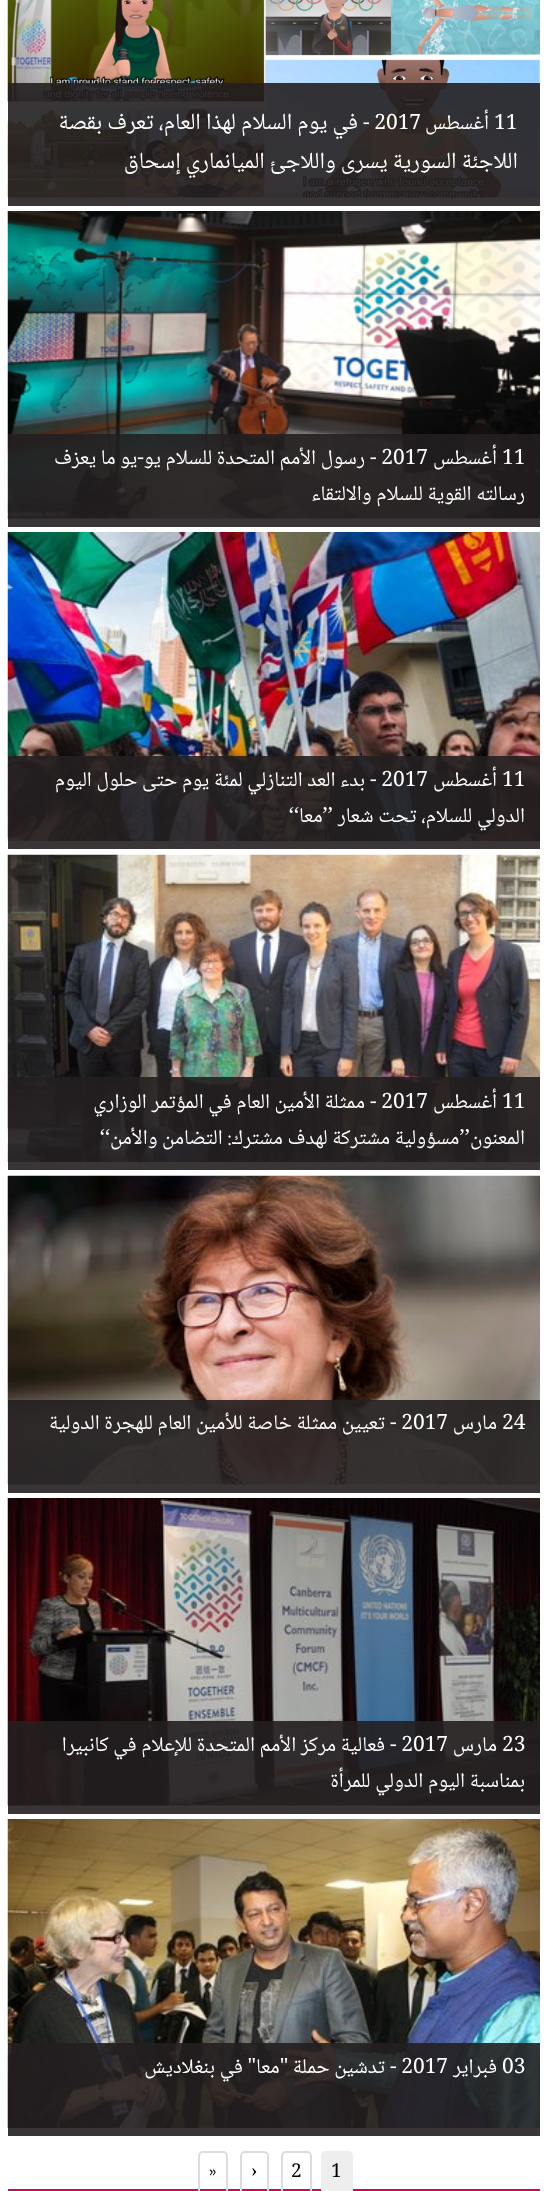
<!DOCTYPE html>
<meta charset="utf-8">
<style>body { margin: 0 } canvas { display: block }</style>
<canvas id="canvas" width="547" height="2191"></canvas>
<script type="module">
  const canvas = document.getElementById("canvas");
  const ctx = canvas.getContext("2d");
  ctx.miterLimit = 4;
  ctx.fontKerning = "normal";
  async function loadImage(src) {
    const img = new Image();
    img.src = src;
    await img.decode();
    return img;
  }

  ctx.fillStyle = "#ffffff";
  ctx.fillRect(0, 0, 547, 2191);
  ctx.drawImage(await loadImage("img1.png"), 7, 0, 533, 198);
  ctx.fillStyle = "rgba(35, 31, 32, 0.9)";
  ctx.fillRect(8, 83, 532, 123);
  ctx.font = "21px Noto Naskh Arabic";
  ctx.fillStyle = "#ffffff";
  ctx.fillText("11", 494, 129);
  ctx.direction = "rtl";
  ctx.fillText("أغسطس", 489, 129);
  ctx.direction = "ltr";
  ctx.fillText("- 2017", 363, 129);
  ctx.direction = "rtl";
  ctx.font = "23.1px Noto Naskh Arabic";
  ctx.fillText("في يوم السلام لهذا العام، تعرف بقصة", 358, 129);
  ctx.fillText("اللاجئة السورية يسرى واللاجئ الميانماري إسحاق", 518, 168);
  ctx.drawImage(await loadImage("img2.png"), 7, 211, 533, 308);
  ctx.fillStyle = "rgba(35, 31, 32, 0.9)";
  ctx.fillRect(8, 434, 532, 93);
  ctx.direction = "ltr";
  ctx.font = "21px Noto Naskh Arabic";
  ctx.fillStyle = "#ffffff";
  ctx.fillText("11", 502, 464);
  ctx.direction = "rtl";
  ctx.fillText("أغسطس", 497, 464);
  ctx.direction = "ltr";
  ctx.fillText("- 2017", 370, 464);
  ctx.direction = "rtl";
  ctx.fillText("رسول الأمم المتحدة للسلام يو-يو ما يعزف", 365, 464);
  ctx.fillText("رسالته القوية للسلام والالتقاء", 525, 500);
  ctx.drawImage(await loadImage("img3.png"), 7, 532, 533, 309);
  ctx.fillStyle = "rgba(35, 31, 32, 0.9)";
  ctx.fillRect(8, 756, 532, 93);
  ctx.direction = "ltr";
  ctx.fillStyle = "#ffffff";
  ctx.fillText("11", 502, 786);
  ctx.direction = "rtl";
  ctx.fillText("أغسطس", 497, 786);
  ctx.direction = "ltr";
  ctx.fillText("- 2017", 370, 786);
  ctx.direction = "rtl";
  ctx.fillText("بدء العد التنازلي لمئة يوم حتى حلول اليوم", 365, 786);
  ctx.fillText("الدولي للسلام، تحت شعار ’’معا‘‘", 525, 822);
  ctx.drawImage(await loadImage("img4.png"), 7, 854, 533, 308);
  ctx.fillStyle = "rgba(35, 31, 32, 0.9)";
  ctx.fillRect(8, 1077, 532, 93);
  ctx.direction = "ltr";
  ctx.fillStyle = "#ffffff";
  ctx.fillText("11", 502, 1108);
  ctx.direction = "rtl";
  ctx.fillText("أغسطس", 497, 1108);
  ctx.direction = "ltr";
  ctx.fillText("- 2017", 370, 1108);
  ctx.direction = "rtl";
  ctx.fillText("ممثلة الأمين العام في المؤتمر الوزاري", 365, 1108);
  ctx.fillText("المعنون’’مسؤولية مشتركة لهدف مشترك: التضامن والأمن‘‘", 525, 1144);
  ctx.drawImage(await loadImage("img5.png"), 7, 1175, 533, 310);
  ctx.fillStyle = "rgba(35, 31, 32, 0.9)";
  ctx.fillRect(8, 1400, 532, 93);
  ctx.direction = "ltr";
  ctx.fillStyle = "#ffffff";
  ctx.fillText("24", 502, 1429);
  ctx.direction = "rtl";
  ctx.fillText("مارس", 497, 1429);
  ctx.direction = "ltr";
  ctx.fillText("- 2017", 390, 1429);
  ctx.direction = "rtl";
  ctx.fillText("تعيين ممثلة خاصة للأمين العام للهجرة الدولية", 385, 1429);
  ctx.drawImage(await loadImage("img6.png"), 7, 1498, 533, 308);
  ctx.fillStyle = "rgba(35, 31, 32, 0.9)";
  ctx.fillRect(8, 1721, 532, 93);
  ctx.direction = "ltr";
  ctx.fillStyle = "#ffffff";
  ctx.fillText("23", 502, 1751);
  ctx.direction = "rtl";
  ctx.fillText("مارس", 497, 1751);
  ctx.direction = "ltr";
  ctx.fillText("- 2017", 390, 1751);
  ctx.direction = "rtl";
  ctx.fillText("فعالية مركز الأمم المتحدة للإعلام في كانبيرا", 385, 1751);
  ctx.fillText("بمناسبة اليوم الدولي للمرأة", 525, 1787);
  ctx.drawImage(await loadImage("img7.png"), 7, 1819, 533, 309);
  ctx.fillStyle = "rgba(35, 31, 32, 0.9)";
  ctx.fillRect(8, 2043, 532, 93);
  ctx.direction = "ltr";
  ctx.fillStyle = "#ffffff";
  ctx.fillText("03", 502, 2073);
  ctx.direction = "rtl";
  ctx.fillText("فبراير", 497, 2073);
  ctx.direction = "ltr";
  ctx.fillText("- 2017", 390, 2073);
  ctx.direction = "rtl";
  ctx.fillText("تدشين حملة \"معا\" في بنغلاديش", 385, 2073);
  ctx.fillStyle = "#cf0660";
  ctx.fillRect(8, 2189, 532, 2);
  ctx.fillStyle = "#eeeeee";
  ctx.beginPath();
  ctx.roundRect(322, 2152, 30, 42, 4);
  ctx.fill();
  ctx.strokeStyle = "#eeeeee";
  ctx.lineWidth = 2;
  ctx.stroke();
  ctx.direction = "ltr";
  ctx.font = "19px Noto Naskh Arabic";
  ctx.fillStyle = "#000000";
  ctx.fillText("1", 331, 2177);
  ctx.beginPath();
  ctx.roundRect(282, 2152, 29, 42, 4);
  ctx.strokeStyle = "#dddddd";
  ctx.stroke();
  ctx.fillText("2", 291, 2177);
  ctx.beginPath();
  ctx.roundRect(241, 2152, 27, 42, 4);
  ctx.stroke();
  ctx.fillText("›", 251, 2177);
  ctx.beginPath();
  ctx.roundRect(199, 2152, 28, 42, 4);
  ctx.stroke();
  ctx.fillText("»", 209, 2177);
</script>
